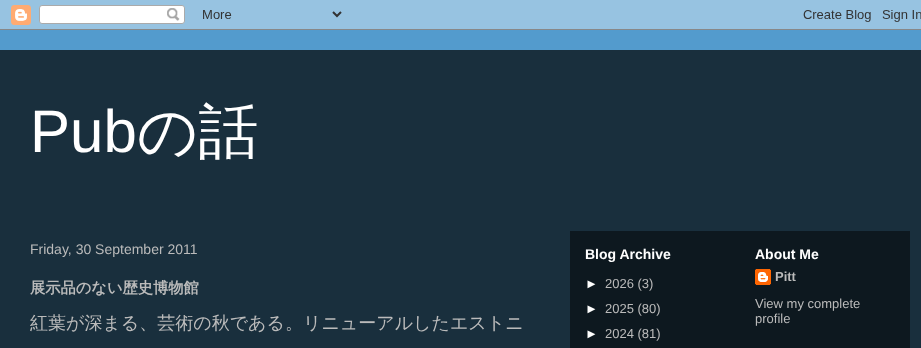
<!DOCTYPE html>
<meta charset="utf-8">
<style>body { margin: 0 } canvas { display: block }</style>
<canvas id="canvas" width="921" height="348"></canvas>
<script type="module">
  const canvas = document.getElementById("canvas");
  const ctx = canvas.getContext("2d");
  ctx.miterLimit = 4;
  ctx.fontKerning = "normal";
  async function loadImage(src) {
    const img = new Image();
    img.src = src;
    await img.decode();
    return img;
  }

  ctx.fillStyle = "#539bcd";
  ctx.fillRect(0, 0, 921, 348);
  ctx.drawImage(await loadImage("img1.png"), 0, 0, 921, 30);
  ctx.fillStyle = "#192f3d";
  ctx.fillRect(0, 50, 921, 298);
  ctx.font = "60px Liberation Sans";
  ctx.fillStyle = "#ffffff";
  ctx.fillText("Pub", 30, 152);
  ctx.font = "500 60px WenQuanYi Zen Hei";
  ctx.fillText("の話", 137, 152);
  ctx.fillStyle = "#0d181f";
  ctx.fillRect(570, 231, 340, 117);
  ctx.font = "14px Liberation Sans";
  ctx.fillStyle = "#bbbbbb";
  ctx.fillText("Friday, 30 September 2011", 30, 254);
  ctx.font = "bold 15.25px WenQuanYi Zen Hei";
  ctx.fillText("展示品のない歴史博物館", 30, 293);
  ctx.font = "500 18px WenQuanYi Zen Hei";
  ctx.fillText("紅葉が深まる、芸術の秋である。リニューアルしたエストニ", 30, 329);
  ctx.font = "bold 14px Liberation Sans";
  ctx.fillStyle = "#ffffff";
  ctx.fillText("Blog Archive", 585, 259);
  ctx.font = "13px Liberation Sans";
  ctx.fillText("►", 585, 288);
  ctx.fillStyle = "#bbbbbb";
  ctx.fillText("2026 (3)", 605, 288);
  ctx.fillStyle = "#ffffff";
  ctx.fillText("►", 585, 313);
  ctx.fillStyle = "#bbbbbb";
  ctx.fillText("2025 (80)", 605, 313);
  ctx.fillStyle = "#ffffff";
  ctx.fillText("►", 585, 338);
  ctx.fillStyle = "#bbbbbb";
  ctx.fillText("2024 (81)", 605, 338);
  ctx.font = "bold 14px Liberation Sans";
  ctx.fillStyle = "#ffffff";
  ctx.fillText("About Me", 755, 259);
  ctx.drawImage(await loadImage("img2.png"), 755, 269, 16, 16);
  ctx.font = "bold 13px Liberation Sans";
  ctx.fillStyle = "#bbbbbb";
  ctx.fillText("Pitt", 775, 281);
  ctx.font = "13px Liberation Sans";
  ctx.fillText("View my complete", 755, 308);
  ctx.fillText("profile", 755, 323);
</script>
